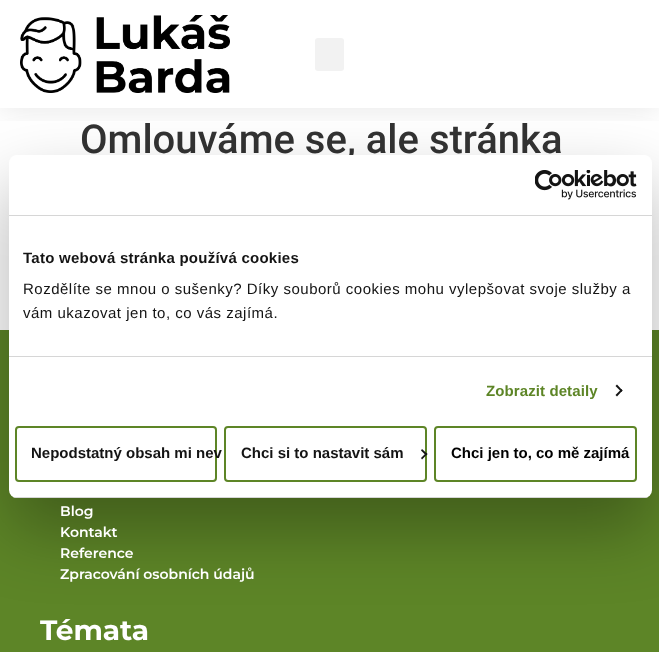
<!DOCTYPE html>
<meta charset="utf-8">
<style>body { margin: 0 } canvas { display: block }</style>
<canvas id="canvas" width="659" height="652"></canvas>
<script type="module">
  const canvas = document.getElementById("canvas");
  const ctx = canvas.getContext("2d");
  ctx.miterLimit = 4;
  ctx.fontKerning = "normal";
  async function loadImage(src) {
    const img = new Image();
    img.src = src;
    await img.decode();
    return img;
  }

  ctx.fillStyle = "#ffffff";
  ctx.fillRect(0, 0, 659, 652);
  ctx.save();
  ctx.beginPath();
  ctx.rect(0, 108, 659, 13);
  ctx.clip();
  ctx.fillStyle = "rgba(0, 0, 0, 0.1)";
  ctx.filter = "blur(15px)";
  ctx.beginPath();
  ctx.rect(0, 0, 659, 108);
  ctx.fill();
  ctx.filter = "none";
  ctx.restore();
  ctx.drawImage(await loadImage("img1.png"), 20, 15, 210, 78);
  ctx.fillStyle = "#f2f2f2";
  ctx.beginPath();
  ctx.roundRect(315, 38, 29, 33, 3);
  ctx.fill();
  ctx.font = "500 40px Roboto";
  ctx.fillStyle = "#333333";
  ctx.fillText("Omlouváme se, ale stránka", 80, 153);
  ctx.fillStyle = "#5d8527";
  ctx.fillRect(0, 330, 659, 322);
  ctx.fillStyle = "rgba(0, 0, 0, 0.3)";
  ctx.filter = "blur(34px)";
  ctx.beginPath();
  ctx.roundRect(9, 187, 643, 343, 8);
  ctx.fill();
  ctx.filter = "none";
  ctx.fillStyle = "#ffffff";
  ctx.beginPath();
  ctx.roundRect(9, 155, 643, 343, 8);
  ctx.fill();
  ctx.fillStyle = "#d6d6d6";
  ctx.fillRect(9, 215, 643, 1);
  ctx.drawImage(await loadImage("img2.png"), 535, 170, 102, 30);
  ctx.fillRect(9, 356, 643, 1);
  ctx.letterSpacing = "0.25px";
  ctx.font = "bold 15px Liberation Sans";
  ctx.fillStyle = "#141414";
  ctx.fillText("Tato webová stránka používá cookies", 23, 263);
  ctx.letterSpacing = "0.5px";
  ctx.font = "15px Liberation Sans";
  ctx.fillText("Rozdělíte se mnou o sušenky? Díky souborů cookies mohu vylepšovat svoje služby a", 23, 294);
  ctx.fillText("vám ukazovat jen to, co vás zajímá.", 23, 318);
  ctx.letterSpacing = "0.1px";
  ctx.font = "bold 15px Liberation Sans";
  ctx.fillStyle = "#5d8526";
  ctx.fillText("Zobrazit detaily", 486, 396);
  ctx.fillStyle = "#141414";
  ctx.beginPath();
  ctx.moveTo(617, 384.5);
  ctx.lineTo(622.5, 390.5);
  ctx.lineTo(621.5, 392);
  ctx.lineTo(615.5, 386);
  ctx.closePath();
  ctx.fill();
  ctx.beginPath();
  ctx.moveTo(621.5, 389);
  ctx.lineTo(622.5, 390.5);
  ctx.lineTo(617, 396.5);
  ctx.lineTo(615.5, 395);
  ctx.closePath();
  ctx.fill();
  ctx.save();
  ctx.beginPath();
  ctx.roundRect(9, 155, 643, 343, 8);
  ctx.clip();
  ctx.fillStyle = "#d6d6d6";
  ctx.fillRect(9, 497, 643, 1);
  ctx.restore();
  ctx.beginPath();
  ctx.roundRect(16, 427, 200, 54, 3);
  ctx.strokeStyle = "#5d8526";
  ctx.lineWidth = 2;
  ctx.stroke();
  ctx.letterSpacing = "0px";
  ctx.fillText("Nepodstatný obsah mi nev", 31, 458);
  ctx.beginPath();
  ctx.roundRect(225, 427, 201, 54, 3);
  ctx.stroke();
  ctx.fillText("Chci si to nastavit sám", 241, 458);
  ctx.beginPath();
  ctx.moveTo(422, 449);
  ctx.lineTo(427.5, 454);
  ctx.lineTo(426, 455.5);
  ctx.lineTo(421, 450.5);
  ctx.closePath();
  ctx.fill();
  ctx.beginPath();
  ctx.moveTo(426, 453);
  ctx.lineTo(427.5, 454);
  ctx.lineTo(422, 459.5);
  ctx.lineTo(421, 458);
  ctx.closePath();
  ctx.fill();
  ctx.beginPath();
  ctx.roundRect(435, 427, 201, 54, 3);
  ctx.stroke();
  ctx.fillStyle = "#000000";
  ctx.fillText("Chci jen to, co mě zajímá", 451, 458);
  ctx.font = "600 14px Montserrat";
  ctx.fillStyle = "#ffffff";
  ctx.fillText("Blog", 60, 516);
  ctx.fillText("Kontakt", 60, 537);
  ctx.fillText("Reference", 60, 558);
  ctx.fillText("Zpracování osobních údajů", 60, 579);
  ctx.font = "bold 28px Montserrat";
  ctx.fillText("Témata", 40, 640);
</script>
